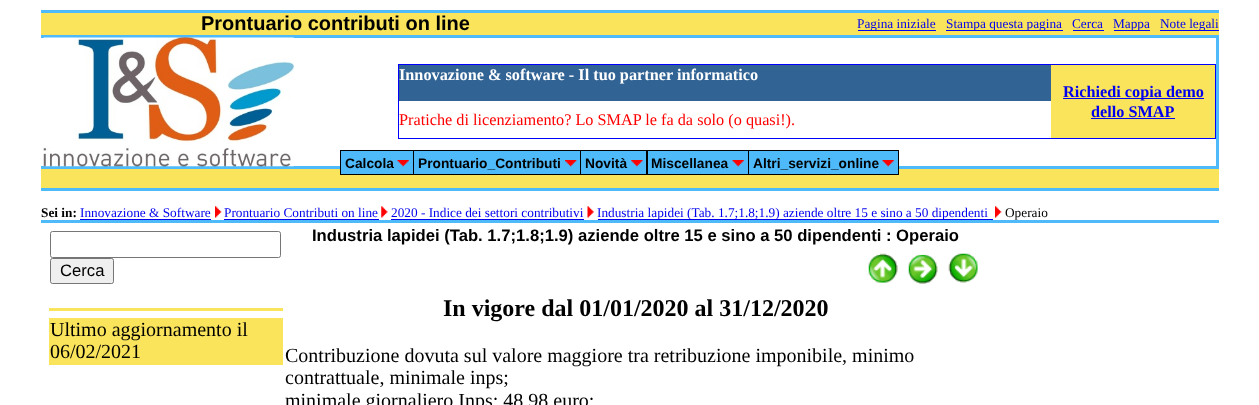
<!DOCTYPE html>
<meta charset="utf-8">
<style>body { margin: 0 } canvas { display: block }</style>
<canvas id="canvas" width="1259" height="405"></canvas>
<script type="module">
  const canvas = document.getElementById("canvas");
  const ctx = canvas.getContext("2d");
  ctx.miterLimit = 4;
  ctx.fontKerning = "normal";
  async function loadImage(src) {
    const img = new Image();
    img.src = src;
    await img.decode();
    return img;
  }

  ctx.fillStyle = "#ffffff";
  ctx.fillRect(0, 0, 1259, 405);
  ctx.fillStyle = "#4ebafa";
  ctx.fillRect(41, 10, 1178, 3);
  ctx.fillStyle = "#f9e45b";
  ctx.fillRect(41, 13, 1178, 22);
  ctx.font = "bold 20px Liberation Sans";
  ctx.fillStyle = "#000000";
  ctx.fillText("Prontuario contributi on line", 201, 30);
  ctx.fillStyle = "#0000ee";
  ctx.fillRect(858, 30, 78, 1);
  ctx.font = "13.3px Liberation Serif";
  ctx.fillText("Pagina iniziale", 857, 28);
  ctx.fillRect(946, 30, 117, 1);
  ctx.fillText("Stampa questa pagina", 946, 28);
  ctx.fillText("Cerca", 1072, 28);
  ctx.fillRect(1073, 30, 31, 1);
  ctx.fillRect(1114, 30, 36, 1);
  ctx.fillText("Mappa", 1113, 28);
  ctx.fillRect(1160, 30, 59, 1);
  ctx.fillText("Note legali", 1160, 28);
  ctx.fillStyle = "#4ebafa";
  ctx.fillRect(41, 35, 1178, 3);
  ctx.fillRect(41, 166, 1178, 3);
  ctx.drawImage(await loadImage("img1.png"), 43, 37, 251, 130);
  ctx.strokeStyle = "#0000ff";
  ctx.strokeRect(398.5, 64.5, 817, 74);
  ctx.fillStyle = "#316394";
  ctx.fillRect(399, 65, 652, 36);
  ctx.font = "bold 16.25px Liberation Serif";
  ctx.fillStyle = "#ffffff";
  ctx.fillText("Innovazione & software - Il tuo partner informatico", 399, 80);
  ctx.fillStyle = "#f9e45b";
  ctx.fillRect(1051, 65, 164, 73);
  ctx.fillStyle = "#0000ee";
  ctx.fillRect(1063, 98, 141, 1);
  ctx.fillText("Richiedi copia demo", 1063, 97);
  ctx.fillText("dello SMAP", 1091, 117);
  ctx.fillRect(1091, 118, 84, 1);
  ctx.font = "16.25px Liberation Serif";
  ctx.fillStyle = "#ff0000";
  ctx.fillText("Pratiche di licenziamento? Lo SMAP le fa da solo (o quasi!).", 399, 125);
  ctx.fillStyle = "#4ebafa";
  ctx.fillRect(1216, 38, 3, 128);
  ctx.fillStyle = "#f9e45b";
  ctx.fillRect(41, 169, 1178, 19);
  ctx.fillStyle = "#4ebafa";
  ctx.fillRect(41, 188, 1178, 3);
  ctx.font = "bold 13.3px Liberation Serif";
  ctx.fillStyle = "#000000";
  ctx.fillText("Sei in:", 41, 217);
  ctx.font = "13.3px Liberation Serif";
  ctx.fillStyle = "#0000ee";
  ctx.fillText("Innovazione & Software", 80, 217);
  ctx.fillRect(80, 219, 131, 1);
  ctx.drawImage(await loadImage("img2.png"), 215, 206, 7, 12);
  ctx.fillText("Prontuario Contributi on line", 224, 217);
  ctx.fillRect(224, 219, 155, 1);
  ctx.drawImage(await loadImage("img3.png"), 381, 206, 7, 12);
  ctx.fillText("2020 - Indice dei settori contributivi", 391, 217);
  ctx.fillRect(391, 219, 193, 1);
  ctx.drawImage(await loadImage("img4.png"), 587, 206, 7, 12);
  ctx.fillRect(598, 219, 395, 1);
  ctx.fillText("Industria lapidei (Tab. 1.7;1.8;1.9) aziende oltre 15 e sino a 50 dipendenti", 597, 217);
  ctx.drawImage(await loadImage("img5.png"), 995, 206, 7, 12);
  ctx.fillStyle = "#000000";
  ctx.fillText("Operaio", 1005, 217);
  ctx.fillStyle = "#4ebafa";
  ctx.fillRect(41, 220, 1178, 3);
  ctx.beginPath();
  ctx.roundRect(50.5, 231.5, 230, 26, 2);
  ctx.strokeStyle = "#767676";
  ctx.stroke();
  ctx.fillStyle = "#efefef";
  ctx.beginPath();
  ctx.roundRect(50.5, 258.5, 63, 25, 2);
  ctx.fill();
  ctx.stroke();
  ctx.font = "16.65px Liberation Sans";
  ctx.fillStyle = "#000000";
  ctx.fillText("Cerca", 60, 276);
  ctx.fillStyle = "#f9e45b";
  ctx.fillRect(49, 308, 234, 3);
  ctx.fillRect(49, 318, 234, 47);
  ctx.font = "20px Liberation Serif";
  ctx.fillStyle = "#000000";
  ctx.fillText("Ultimo aggiornamento il", 50, 336);
  ctx.fillText("06/02/2021", 50, 358);
  ctx.font = "bold 16.65px Liberation Sans";
  ctx.fillText("Industria lapidei (Tab. 1.7;1.8;1.9) aziende oltre 15 e sino a 50 dipendenti : Operaio", 312, 241);
  ctx.drawImage(await loadImage("img6.png"), 868, 253, 30, 30);
  ctx.drawImage(await loadImage("img7.png"), 908, 254, 30, 30);
  ctx.drawImage(await loadImage("img8.png"), 948, 253, 30, 30);
  ctx.font = "bold 24px Liberation Serif";
  ctx.fillText("In vigore dal 01/01/2020 al 31/12/2020", 443, 316);
  ctx.font = "20px Liberation Serif";
  ctx.fillText("Contribuzione dovuta sul valore maggiore tra retribuzione imponibile, minimo", 285, 362);
  ctx.fillText("contrattuale, minimale inps;", 285, 384);
  ctx.fillText("minimale giornaliero Inps: 48,98 euro;", 285, 407);
  ctx.fillRect(340, 150, 559, 25);
  ctx.fillStyle = "#4ebafa";
  ctx.fillRect(341, 151, 72, 23);
  ctx.font = "bold 13.75px Liberation Sans";
  ctx.fillStyle = "#000000";
  ctx.fillText("Calcola", 345, 168);
  ctx.drawImage(await loadImage("img9.png"), 397, 160, 12, 7);
  ctx.fillStyle = "#4ebafa";
  ctx.fillRect(414, 151, 166, 23);
  ctx.fillStyle = "#000000";
  ctx.fillText("Prontuario_Contributi", 418, 168);
  ctx.drawImage(await loadImage("img10.png"), 565, 160, 12, 7);
  ctx.fillStyle = "#4ebafa";
  ctx.fillRect(581, 151, 65, 23);
  ctx.fillStyle = "#000000";
  ctx.fillText("Novità", 585, 168);
  ctx.drawImage(await loadImage("img11.png"), 631, 160, 12, 7);
  ctx.fillStyle = "#4ebafa";
  ctx.fillRect(648, 151, 100, 23);
  ctx.fillStyle = "#000000";
  ctx.fillText("Miscellanea", 651, 168);
  ctx.drawImage(await loadImage("img12.png"), 732, 160, 12, 7);
  ctx.fillStyle = "#4ebafa";
  ctx.fillRect(749, 151, 149, 23);
  ctx.fillStyle = "#000000";
  ctx.fillText("Altri_servizi_online", 753, 168);
  ctx.drawImage(await loadImage("img12.png"), 882, 160, 12, 7);
</script>
